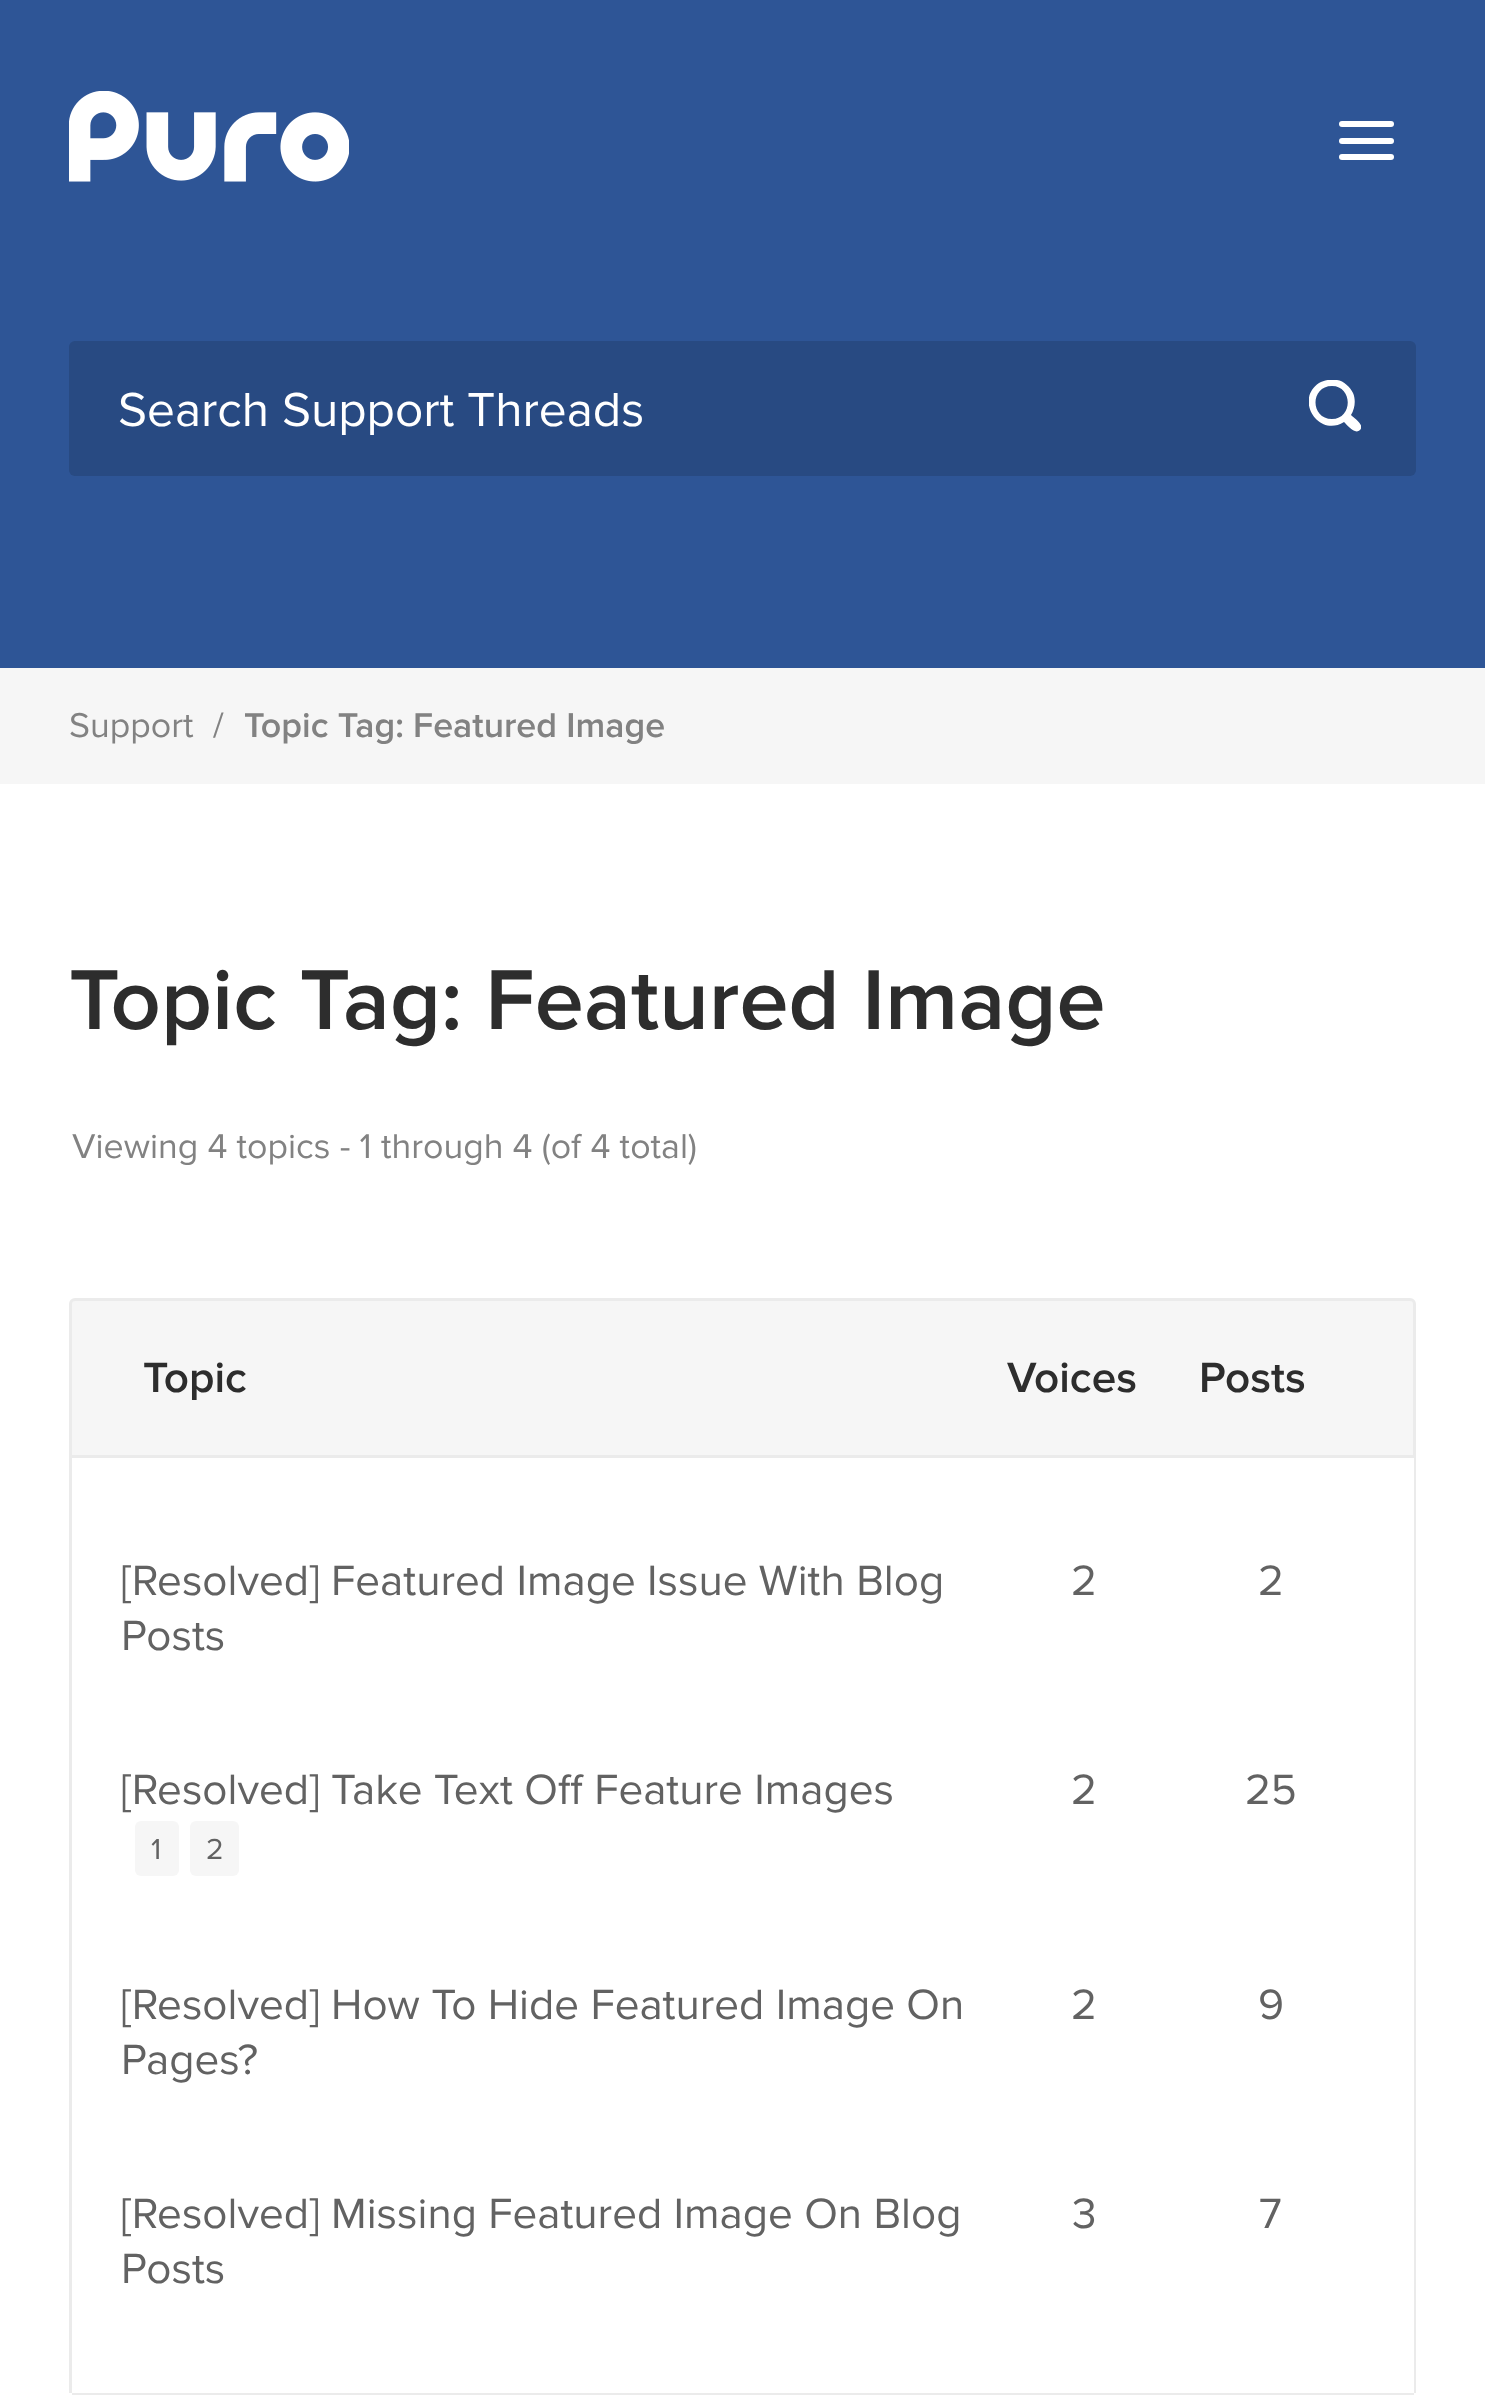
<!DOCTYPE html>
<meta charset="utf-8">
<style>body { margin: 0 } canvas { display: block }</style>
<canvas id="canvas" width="1485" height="2400"></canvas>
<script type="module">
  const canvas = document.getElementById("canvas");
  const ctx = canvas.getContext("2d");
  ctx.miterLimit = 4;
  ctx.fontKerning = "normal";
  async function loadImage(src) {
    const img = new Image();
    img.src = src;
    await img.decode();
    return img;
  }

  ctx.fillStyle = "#ffffff";
  ctx.fillRect(0, 0, 1485, 2400);
  ctx.fillStyle = "#2e5596";
  ctx.fillRect(0, 0, 1485, 668);
  ctx.drawImage(await loadImage("img1.png"), 69, 91, 280, 91);
  ctx.fillStyle = "#ffffff";
  ctx.beginPath();
  ctx.roundRect(1339, 121, 55, 6, 3);
  ctx.fill();
  ctx.beginPath();
  ctx.roundRect(1339, 138, 55, 6, 3);
  ctx.fill();
  ctx.beginPath();
  ctx.roundRect(1339, 154, 55, 6, 3);
  ctx.fill();
  ctx.fillStyle = "#284a82";
  ctx.beginPath();
  ctx.roundRect(69, 341, 1347, 135, 6);
  ctx.fill();
  ctx.font = "49.5px Proxima Nova";
  ctx.fillStyle = "#ffffff";
  ctx.fillText("Search Support Threads", 118, 426);
  ctx.save();
  ctx.beginPath();
  ctx.rect(1309, 380, 52, 52);
  ctx.clip();
  ctx.beginPath();
  ctx.moveTo(1360, 430);
  ctx.bezierCurveTo(1355, 435, 1347, 425, 1344, 422);
  ctx.bezierCurveTo(1319, 438, 1294, 400, 1319, 383);
  ctx.bezierCurveTo(1324, 380, 1331, 379, 1337, 380);
  ctx.bezierCurveTo(1344, 381, 1350, 387, 1353, 393);
  ctx.bezierCurveTo(1356, 400, 1355, 408, 1351, 415);
  ctx.bezierCurveTo(1354, 418, 1365, 425, 1360, 430);
  ctx.closePath();
  ctx.moveTo(1332, 386);
  ctx.bezierCurveTo(1310, 386, 1310, 419, 1332, 419);
  ctx.bezierCurveTo(1353, 419, 1353, 386, 1332, 386);
  ctx.closePath();
  ctx.fill();
  ctx.restore();
  ctx.fillStyle = "#f6f6f6";
  ctx.fillRect(0, 668, 1485, 116);
  ctx.font = "35.75px Proxima Nova";
  ctx.fillStyle = "#828282";
  ctx.fillText("Support", 69, 737);
  ctx.fillText("/", 213, 737);
  ctx.font = "600 35.75px Proxima Nova";
  ctx.fillText("Topic Tag: Featured Image", 244, 737);
  ctx.font = "600 88px Proxima Nova";
  ctx.fillStyle = "#2d2d2d";
  ctx.fillText("Topic Tag: Featured Image", 69, 1029);
  ctx.font = "35.75px Proxima Nova";
  ctx.fillStyle = "#828282";
  ctx.fillText("Viewing 4 topics - 1 through 4 (of 4 total)", 72, 1158);
  ctx.fillStyle = "#f6f6f6";
  ctx.beginPath();
  ctx.roundRect(70.5, 1299.5, 1344, 157, [4.5, 4.5, 0, 0]);
  ctx.fill();
  ctx.strokeStyle = "#ebebeb";
  ctx.lineWidth = 3;
  ctx.stroke();
  ctx.font = "600 44px Proxima Nova";
  ctx.fillStyle = "#2d2d2d";
  ctx.fillText("Topic", 143, 1392);
  ctx.fillText("Voices", 1007, 1392);
  ctx.fillText("Posts", 1199, 1392);
  ctx.fillStyle = "#ebebeb";
  ctx.fillRect(1414, 1458, 2, 935);
  ctx.fillRect(69, 1458, 3, 935);
  ctx.font = "44px Proxima Nova";
  ctx.fillStyle = "#626262";
  ctx.fillText("[Resolved] Featured Image Issue With Blog", 121, 1595);
  ctx.fillText("Posts", 121, 1650);
  ctx.fillText("2", 1071, 1595);
  ctx.fillText("2", 1258, 1595);
  ctx.fillText("[Resolved] Take Text Off Feature Images", 121, 1804);
  ctx.fillStyle = "#f6f6f6";
  ctx.beginPath();
  ctx.roundRect(135, 1821, 44, 55, 6);
  ctx.fill();
  ctx.font = "30px Proxima Nova";
  ctx.fillStyle = "#626262";
  ctx.fillText("1", 151, 1859);
  ctx.fillStyle = "#f6f6f6";
  ctx.beginPath();
  ctx.roundRect(190, 1821, 49, 55, 6);
  ctx.fill();
  ctx.fillStyle = "#626262";
  ctx.fillText("2", 206, 1859);
  ctx.font = "44px Proxima Nova";
  ctx.fillText("2", 1071, 1804);
  ctx.fillText("25", 1245, 1804);
  ctx.fillText("[Resolved] How To Hide Featured Image On", 121, 2019);
  ctx.fillText("Pages?", 121, 2074);
  ctx.fillText("2", 1071, 2019);
  ctx.fillText("9", 1258, 2019);
  ctx.fillStyle = "#ebebeb";
  ctx.fillRect(72, 2393, 1342, 2);
  ctx.fillStyle = "#626262";
  ctx.fillText("[Resolved] Missing Featured Image On Blog", 121, 2228);
  ctx.fillText("Posts", 121, 2283);
  ctx.fillText("3", 1072, 2228);
  ctx.fillText("7", 1259, 2228);
</script>
